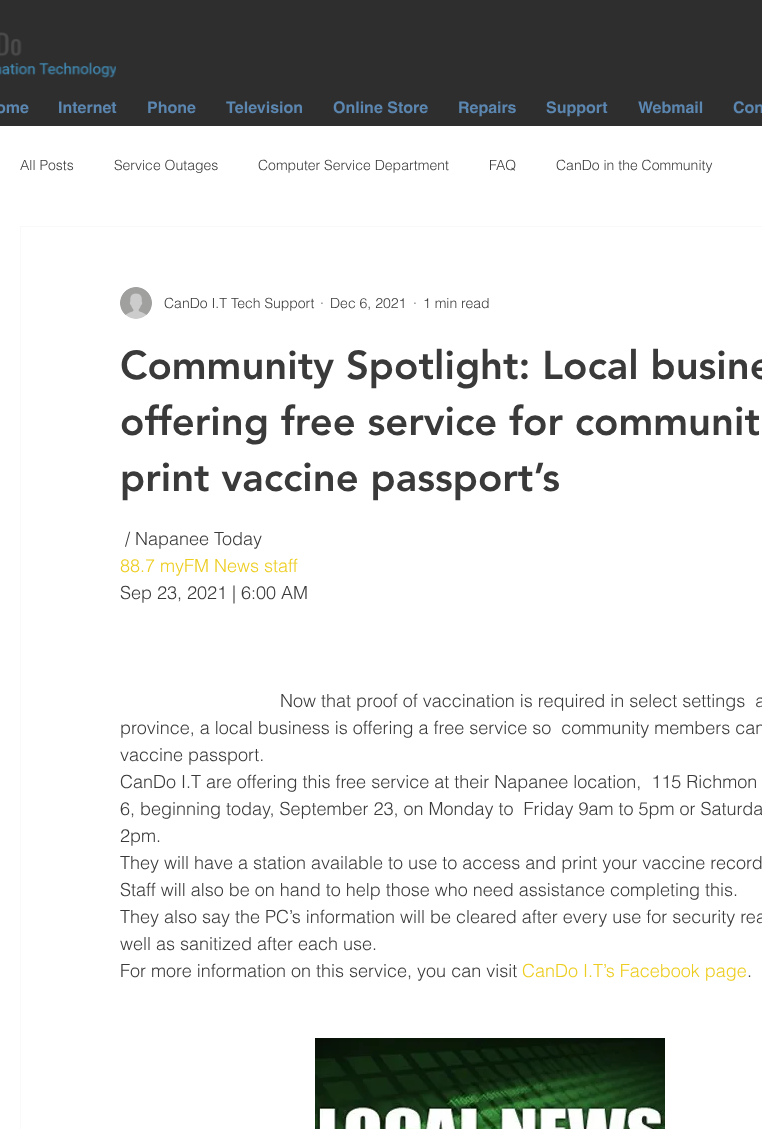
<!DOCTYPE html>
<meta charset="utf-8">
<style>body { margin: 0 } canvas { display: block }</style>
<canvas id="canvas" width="762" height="1129"></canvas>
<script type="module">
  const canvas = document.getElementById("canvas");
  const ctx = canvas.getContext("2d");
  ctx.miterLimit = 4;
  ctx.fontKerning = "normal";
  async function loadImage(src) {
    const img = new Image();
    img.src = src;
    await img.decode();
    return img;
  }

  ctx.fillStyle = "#ffffff";
  ctx.fillRect(0, 0, 762, 1129);
  ctx.fillStyle = "#2f2e2e";
  ctx.fillRect(0, 0, 762, 126);
  ctx.drawImage(await loadImage("img1.png"), 0, 32, 116, 46);
  ctx.font = "bold 16px helvetica";
  ctx.fillStyle = "#5b86b0";
  ctx.fillText("ome", -4, 113);
  ctx.fillText("Internet", 58, 113);
  ctx.fillText("Phone", 147, 113);
  ctx.fillText("Television", 226, 113);
  ctx.fillText("Online Store", 333, 113);
  ctx.fillText("Repairs", 458, 113);
  ctx.fillText("Support", 546, 113);
  ctx.fillText("Webmail", 638, 113);
  ctx.fillText("Con", 733, 113);
  ctx.font = "300 14px helvetica";
  ctx.fillStyle = "#3b3a3a";
  ctx.fillText("All Posts", 20, 170);
  ctx.fillText("Service Outages", 114, 170);
  ctx.fillText("Computer Service Department", 258, 170);
  ctx.fillText("FAQ", 489, 170);
  ctx.fillText("CanDo in the Community", 556, 170);
  ctx.strokeStyle = "#f9f9f9";
  ctx.strokeRect(20.5, 226.5, 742, 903);
  ctx.drawImage(await loadImage("img2.png"), 120, 287, 32, 32);
  ctx.fillText("CanDo I.T Tech Support", 164, 308);
  ctx.fillText("·", 320, 308);
  ctx.fillText("Dec 6, 2021", 330, 308);
  ctx.fillText("·", 413, 308);
  ctx.fillText("1 min read", 423, 308);
  ctx.font = "900 40px 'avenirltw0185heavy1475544'";
  ctx.fillText("Community Spotlight: Local busine", 120, 379);
  ctx.fillText("offering free service for communit", 120, 435);
  ctx.fillText("print vaccine passport’s", 120, 491);
  ctx.font = "300 18px helvetica";
  ctx.fillText("/ Napanee Today", 125, 545);
  ctx.fillStyle = "#edcd1f";
  ctx.fillText("88.7 myFM News staff", 120, 572);
  ctx.fillStyle = "#3b3a3a";
  ctx.fillText("Sep 23, 2021 | 6:00 AM", 120, 599);
  ctx.fillText("Now that proof of vaccination is required in select settings  a", 280, 707);
  ctx.fillText("province, a local business is offering a free service so  community members can", 120, 734);
  ctx.fillText("vaccine passport.", 120, 761);
  ctx.fillText("CanDo I.T are offering this free service at their Napanee location,  115 Richmon", 120, 788);
  ctx.fillText("6, beginning today, September 23, on Monday to  Friday 9am to 5pm or Saturda", 120, 815);
  ctx.fillText("2pm.", 120, 842);
  ctx.fillText("They will have a station available to use to access and print your vaccine record", 120, 869);
  ctx.fillText("Staff will also be on hand to help those who need assistance completing this.", 120, 896);
  ctx.fillText("They also say the PC’s information will be cleared after every use for security rea", 120, 923);
  ctx.fillText("well as sanitized after each use.", 120, 950);
  ctx.fillText("For more information on this service, you can visit", 120, 977);
  ctx.fillStyle = "#edcd1f";
  ctx.fillText("CanDo I.T’s Facebook page", 522, 977);
  ctx.fillStyle = "#3b3a3a";
  ctx.fillText(".", 747, 977);
  ctx.drawImage(await loadImage("img3.png"), 315, 1038, 350, 91);
</script>
